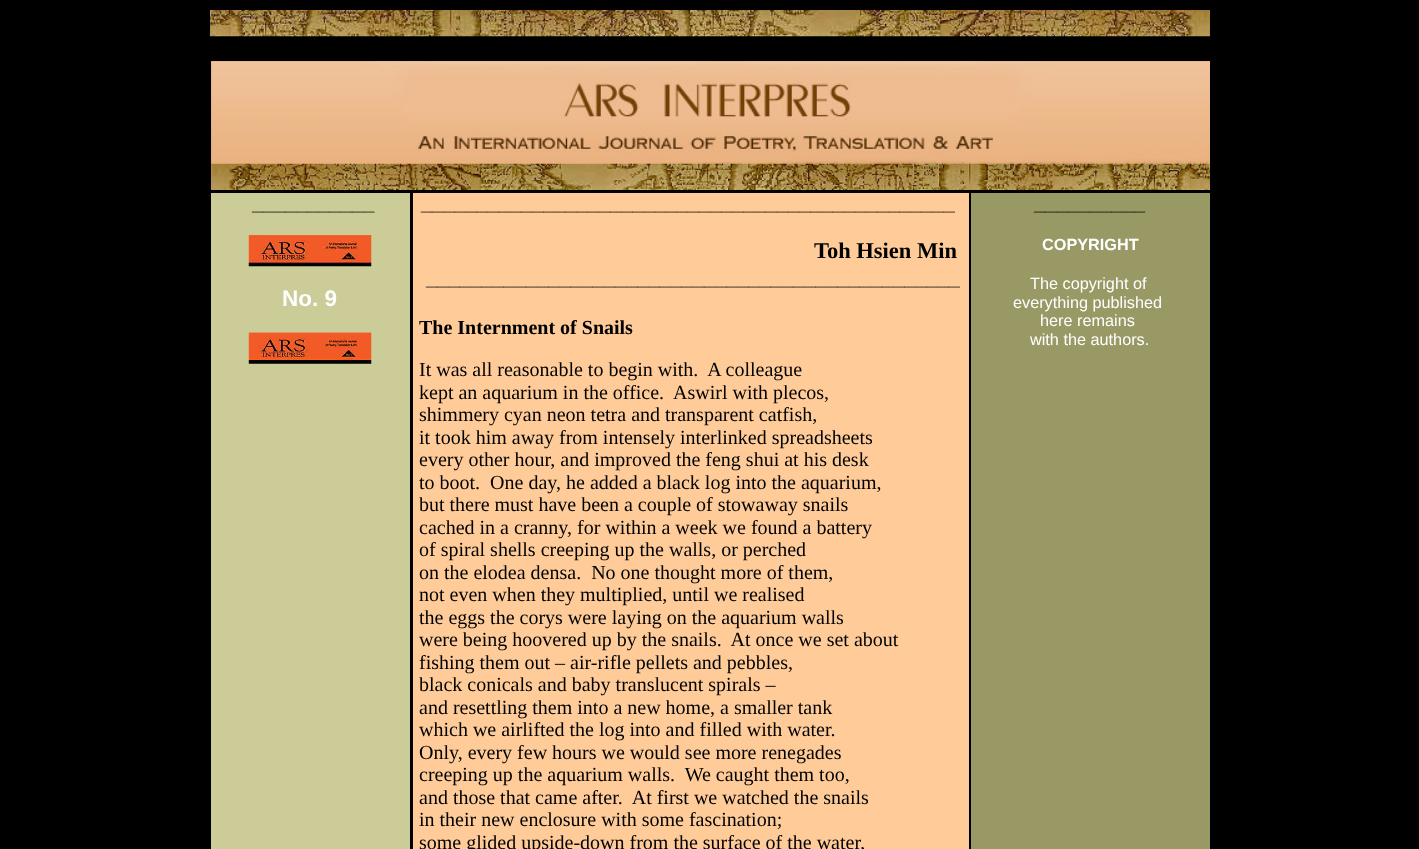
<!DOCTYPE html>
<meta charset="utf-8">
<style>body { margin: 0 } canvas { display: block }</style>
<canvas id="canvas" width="1419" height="849"></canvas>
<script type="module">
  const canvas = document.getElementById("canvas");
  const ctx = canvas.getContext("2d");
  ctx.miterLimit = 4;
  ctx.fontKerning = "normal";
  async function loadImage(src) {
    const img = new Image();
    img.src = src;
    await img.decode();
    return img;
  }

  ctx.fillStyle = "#000000";
  ctx.fillRect(0, 0, 1419, 849);
  ctx.drawImage(await loadImage("img1.png"), 210, 10, 1000, 27);
  ctx.fillStyle = "#cc9966";
  ctx.fillRect(211, 61, 999, 129);
  ctx.drawImage(await loadImage("img2.png"), 211, 61, 999, 129);
  ctx.fillStyle = "#cccc99";
  ctx.fillRect(211, 193, 199, 656);
  ctx.font = "bold 20px Liberation Sans";
  ctx.fillStyle = "#000000";
  ctx.fillText("___________", 252, 210);
  ctx.drawImage(await loadImage("img3.png"), 248, 235, 124, 32);
  ctx.font = "bold 22.5px Liberation Sans";
  ctx.fillStyle = "#ffffff";
  ctx.fillText("No. 9", 282, 306);
  ctx.drawImage(await loadImage("img4.png"), 248, 332, 124, 32);
  ctx.fillStyle = "#ffcc99";
  ctx.fillRect(413, 193, 556, 656);
  ctx.font = "bold 20px Liberation Sans";
  ctx.fillStyle = "#000000";
  ctx.fillText("________________________________________________", 421, 210);
  ctx.font = "bold 22.5px Liberation Serif";
  ctx.fillText("Toh Hsien Min", 814, 258);
  ctx.font = "bold 20px Liberation Sans";
  ctx.fillText("________________________________________________", 426, 285);
  ctx.font = "bold 20px Liberation Serif";
  ctx.fillText("The Internment of Snails", 419, 334);
  ctx.font = "20px Liberation Serif";
  ctx.fillText("It was all reasonable to begin with.  A colleague", 419, 376);
  ctx.fillText("kept an aquarium in the office.  Aswirl with plecos,", 419, 399);
  ctx.fillText("shimmery cyan neon tetra and transparent catfish,", 419, 421);
  ctx.fillText("it took him away from intensely interlinked spreadsheets", 419, 444);
  ctx.fillText("every other hour, and improved the feng shui at his desk", 419, 466);
  ctx.fillText("to boot.  One day, he added a black log into the aquarium,", 419, 489);
  ctx.fillText("but there must have been a couple of stowaway snails", 419, 511);
  ctx.fillText("cached in a cranny, for within a week we found a battery", 419, 534);
  ctx.fillText("of spiral shells creeping up the walls, or perched", 419, 556);
  ctx.fillText("on the elodea densa.  No one thought more of them,", 419, 579);
  ctx.fillText("not even when they multiplied, until we realised", 419, 601);
  ctx.fillText("the eggs the corys were laying on the aquarium walls", 419, 624);
  ctx.fillText("were being hoovered up by the snails.  At once we set about", 419, 646);
  ctx.fillText("fishing them out – air-rifle pellets and pebbles,", 419, 669);
  ctx.fillText("black conicals and baby translucent spirals –", 419, 691);
  ctx.fillText("and resettling them into a new home, a smaller tank", 419, 714);
  ctx.fillText("which we airlifted the log into and filled with water.", 419, 736);
  ctx.fillText("Only, every few hours we would see more renegades", 419, 759);
  ctx.fillText("creeping up the aquarium walls.  We caught them too,", 419, 781);
  ctx.fillText("and those that came after.  At first we watched the snails", 419, 804);
  ctx.fillText("in their new enclosure with some fascination;", 419, 826);
  ctx.fillText("some glided upside-down from the surface of the water,", 419, 849);
  ctx.fillStyle = "#999966";
  ctx.fillRect(971, 193, 239, 656);
  ctx.font = "bold 20px Liberation Sans";
  ctx.fillStyle = "#000000";
  ctx.fillText("__________", 1034, 210);
  ctx.font = "bold 16.25px Liberation Sans";
  ctx.fillStyle = "#ffffff";
  ctx.fillText("COPYRIGHT", 1042, 250);
  ctx.font = "16.25px Liberation Sans";
  ctx.fillText("The copyright of", 1030, 289);
  ctx.fillText("everything published", 1013, 308);
  ctx.fillText("here remains", 1040, 326);
  ctx.fillText("with the authors.", 1030, 345);
</script>
